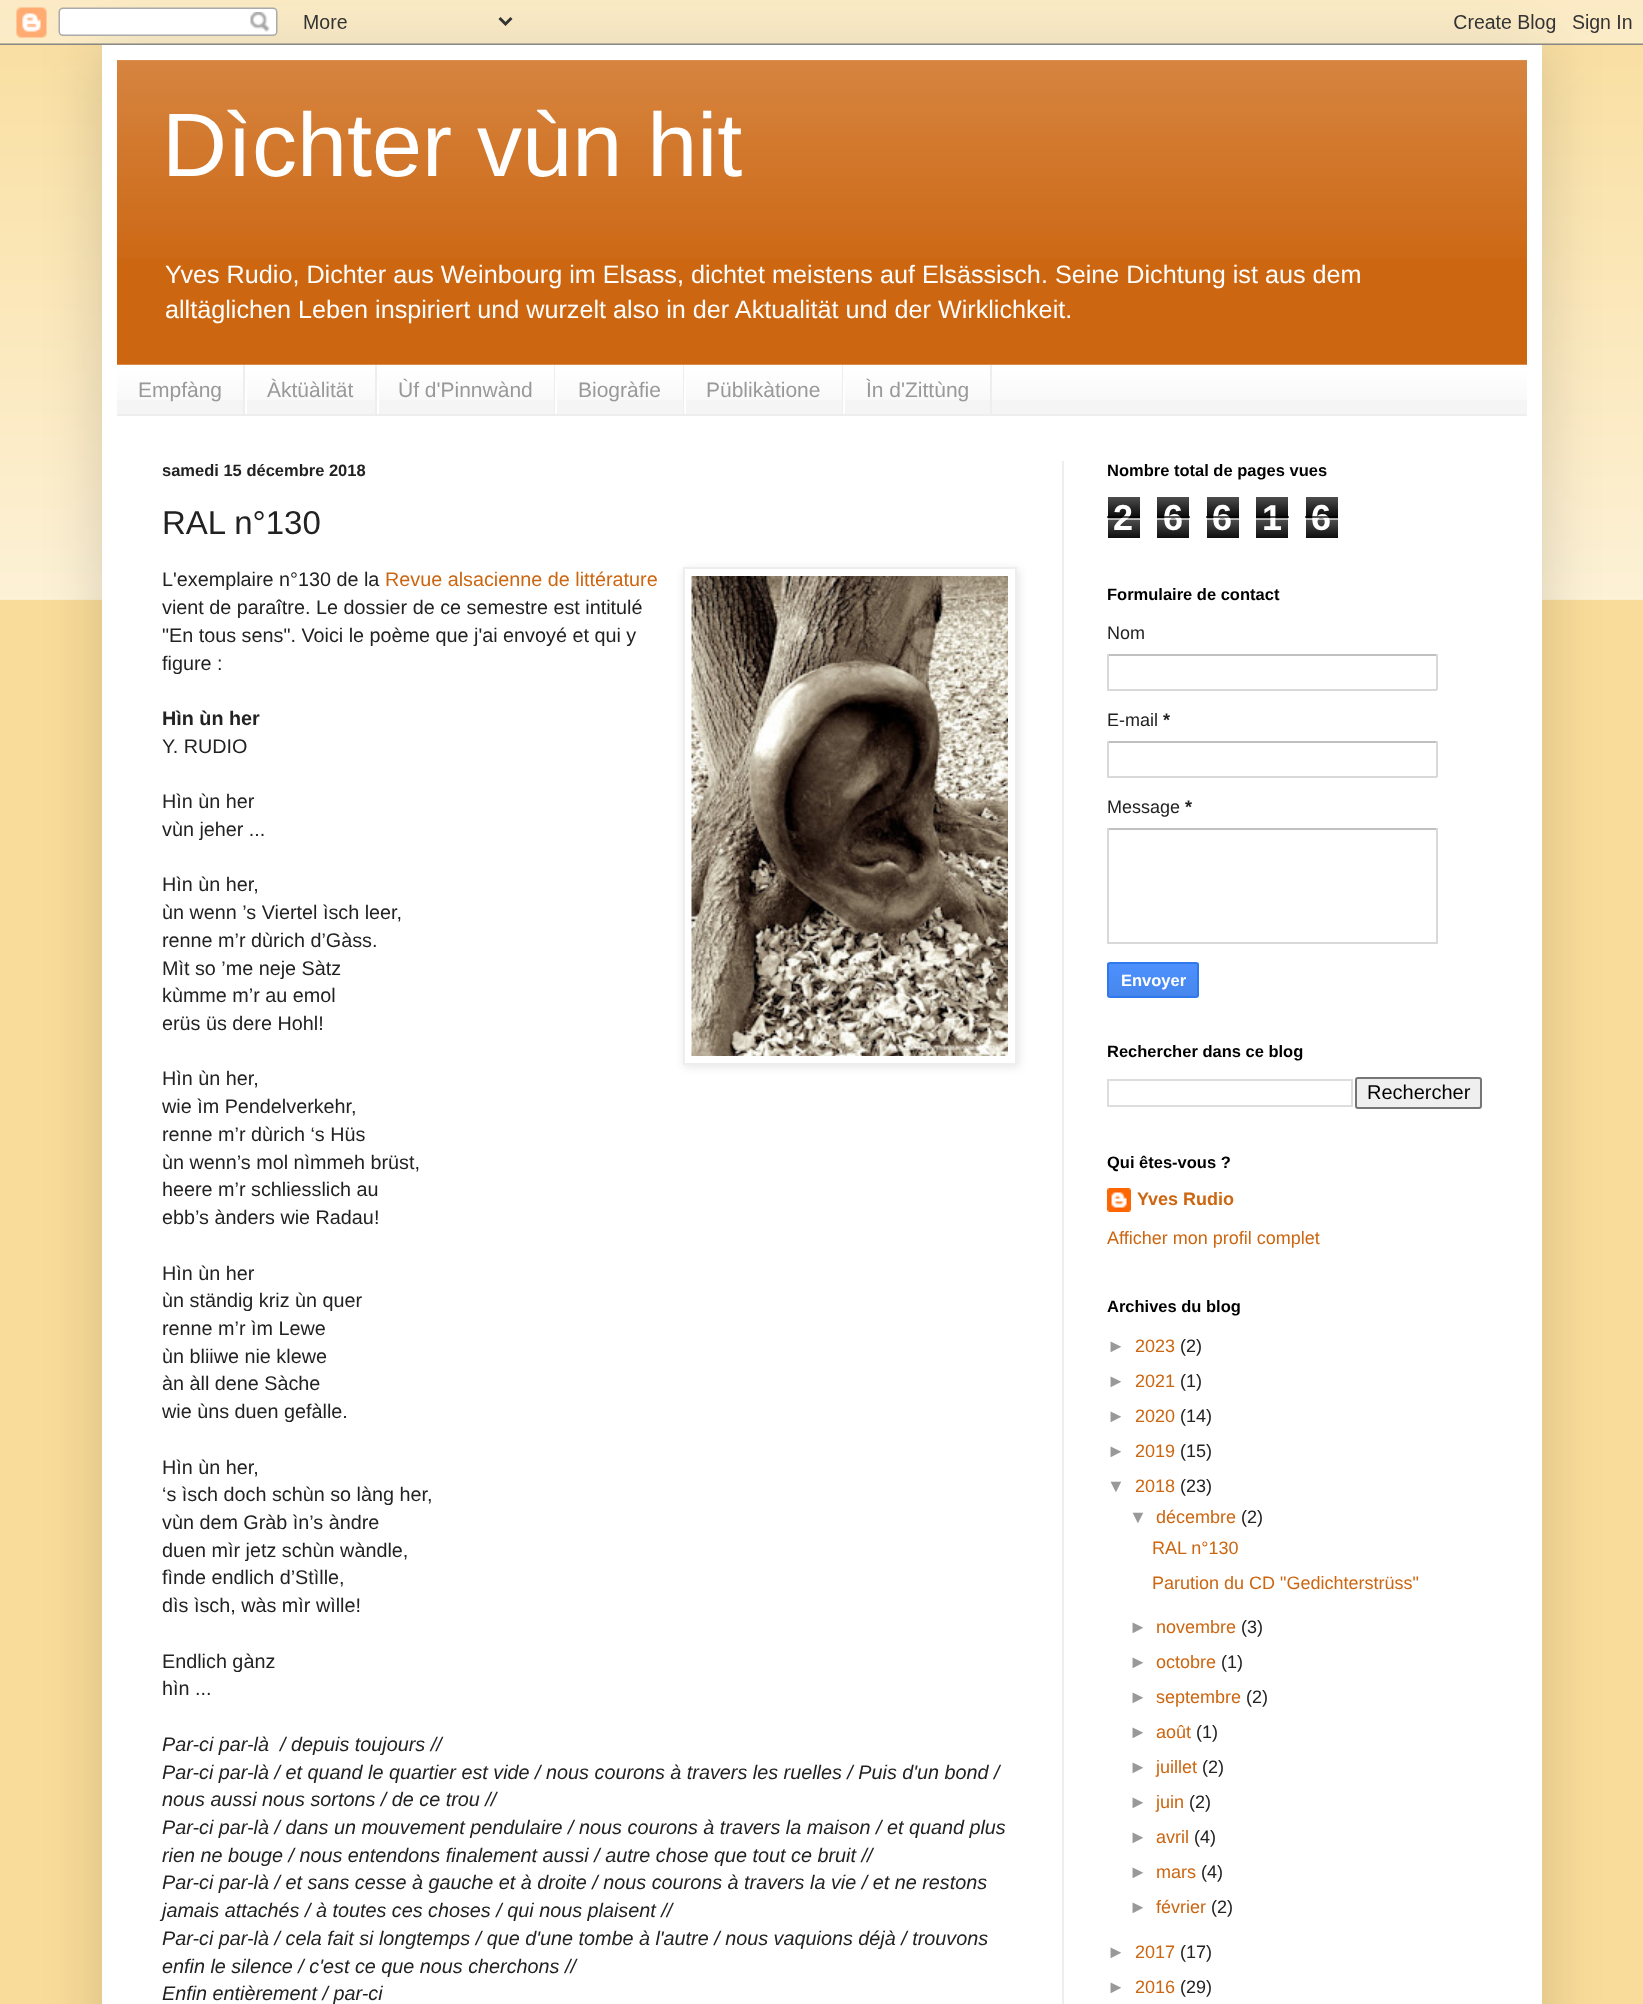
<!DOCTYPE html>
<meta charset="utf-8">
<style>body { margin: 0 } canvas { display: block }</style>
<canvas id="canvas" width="1643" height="2004"></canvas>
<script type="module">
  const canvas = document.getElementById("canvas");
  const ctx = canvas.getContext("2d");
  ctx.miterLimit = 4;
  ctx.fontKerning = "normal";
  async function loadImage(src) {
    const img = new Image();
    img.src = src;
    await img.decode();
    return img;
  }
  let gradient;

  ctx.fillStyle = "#f9dc99";
  ctx.fillRect(0, 0, 1643, 2004);
  ctx.drawImage(await loadImage("img1.png"), 0, 0, 1643, 600);
  ctx.fillStyle = "rgba(0, 0, 0, 0.15)";
  ctx.filter = "blur(30px)";
  ctx.beginPath();
  ctx.rect(102, 45, 1440, 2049);
  ctx.fill();
  ctx.filter = "none";
  ctx.drawImage(await loadImage("img2.png"), 0, 0, 1643, 45);
  ctx.fillStyle = "#ffffff";
  ctx.fillRect(102, 45, 1440, 1959);
  ctx.fillStyle = "#cc6611";
  ctx.fillRect(117, 60, 1410, 305);
  ctx.drawImage(await loadImage("img3.png"), 117, 60, 1410, 199);
  ctx.font = "90px Liberation Sans";
  ctx.fillStyle = "#ffffff";
  ctx.fillText("Dìchter vùn hit", 162, 176);
  ctx.font = "25.2px Liberation Sans";
  ctx.fillText("Yves Rudio, Dichter aus Weinbourg im Elsass, dichtet meistens auf Elsässisch. Seine Dichtung ist aus dem", 165, 283);
  ctx.fillText("alltäglichen Leben inspiriert und wurzelt also in der Aktualität und der Wirklichkeit.", 165, 318);
  ctx.fillStyle = "#f5f5f5";
  ctx.fillRect(117, 366, 1410, 48);
  ctx.drawImage(await loadImage("img4.png"), 117, 364, 1410, 36);
  ctx.fillStyle = "#eeeeee";
  ctx.fillRect(117, 414, 1410, 2);
  ctx.fillRect(243, 365, 2, 49);
  ctx.font = "21px Liberation Sans";
  ctx.fillStyle = "#999999";
  ctx.fillText("Empfàng", 138, 397);
  ctx.fillStyle = "#eeeeee";
  ctx.fillRect(375, 365, 2, 49);
  ctx.fillStyle = "#ffffff";
  ctx.fillRect(245, 381, 2, 33);
  ctx.fillStyle = "#999999";
  ctx.fillText("Àktüàlität", 267, 397);
  ctx.fillStyle = "#eeeeee";
  ctx.fillRect(554, 365, 1, 49);
  ctx.fillStyle = "#ffffff";
  ctx.fillRect(377, 381, 2, 33);
  ctx.fillStyle = "#999999";
  ctx.fillText("Ùf d'Pinnwànd", 398, 397);
  ctx.fillStyle = "#eeeeee";
  ctx.fillRect(683, 365, 1, 49);
  ctx.fillStyle = "#ffffff";
  ctx.fillRect(555, 381, 2, 33);
  ctx.fillStyle = "#999999";
  ctx.fillText("Biogràfie", 578, 397);
  ctx.fillStyle = "#eeeeee";
  ctx.fillRect(842, 365, 1, 49);
  ctx.fillStyle = "#ffffff";
  ctx.fillRect(684, 381, 2, 33);
  ctx.fillStyle = "#999999";
  ctx.fillText("Püblikàtione", 706, 397);
  ctx.fillStyle = "#eeeeee";
  ctx.fillRect(990, 365, 2, 49);
  ctx.fillStyle = "#ffffff";
  ctx.fillRect(843, 381, 2, 33);
  ctx.fillStyle = "#999999";
  ctx.fillText("Ìn d'Zittùng", 866, 397);
  ctx.fillStyle = "#eeeeee";
  ctx.fillRect(1062, 461, 2, 1543);
  ctx.font = "bold 16.5px Liberation Sans";
  ctx.fillStyle = "#222222";
  ctx.fillText("samedi 15 décembre 2018", 162, 476);
  ctx.font = "33px Liberation Sans";
  ctx.fillText("RAL n°130", 162, 534);
  ctx.font = "19.8px Liberation Sans";
  ctx.fillText("L'exemplaire n°130 de la", 162, 586);
  ctx.fillStyle = "#cc6611";
  ctx.fillText("Revue alsacienne de littérature", 385, 586);
  ctx.save();
  ctx.beginPath();
  ctx.moveTo(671, 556);
  ctx.lineTo(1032, 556);
  ctx.lineTo(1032, 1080);
  ctx.lineTo(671, 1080);
  ctx.closePath();
  ctx.moveTo(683, 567);
  ctx.lineTo(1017, 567);
  ctx.lineTo(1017, 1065);
  ctx.lineTo(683, 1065);
  ctx.closePath();
  ctx.clip("evenodd");
  ctx.fillStyle = "rgba(0, 0, 0, 0.1)";
  ctx.filter = "blur(4px)";
  ctx.beginPath();
  ctx.rect(684, 569, 335, 498);
  ctx.fill();
  ctx.filter = "none";
  ctx.restore();
  ctx.strokeStyle = "#eeeeee";
  ctx.lineWidth = 2;
  ctx.strokeRect(684, 568, 332, 496);
  ctx.drawImage(await loadImage("img5.png"), 691, 576, 317, 480);
  ctx.fillStyle = "#222222";
  ctx.fillText("vient de paraître. Le dossier de ce semestre est intitulé", 162, 614);
  ctx.fillText("\"En tous sens\". Voici le poème que j'ai envoyé et qui y", 162, 642);
  ctx.fillText("figure :", 162, 670);
  ctx.font = "bold 19.8px Liberation Sans";
  ctx.fillText("Hìn ùn her", 162, 725);
  ctx.font = "19.8px Liberation Sans";
  ctx.fillText("Y. RUDIO", 162, 753);
  ctx.fillText("Hìn ùn her", 162, 808);
  ctx.fillText("vùn jeher ...", 162, 836);
  ctx.fillText("Hìn ùn her,", 162, 891);
  ctx.fillText("ùn wenn ’s Viertel ìsch leer,", 162, 919);
  ctx.fillText("renne m’r dùrich d’Gàss.", 162, 947);
  ctx.fillText("Mìt so ’me neje Sàtz", 162, 975);
  ctx.fillText("kùmme m’r au emol", 162, 1002);
  ctx.fillText("erüs üs dere Hohl!", 162, 1030);
  ctx.fillText("Hìn ùn her,", 162, 1085);
  ctx.fillText("wie ìm Pendelverkehr,", 162, 1113);
  ctx.fillText("renne m’r dùrich ‘s Hüs", 162, 1141);
  ctx.fillText("ùn wenn’s mol nìmmeh brüst,", 162, 1169);
  ctx.fillText("heere m’r schliesslich au", 162, 1196);
  ctx.fillText("ebb’s ànders wie Radau!", 162, 1224);
  ctx.fillText("Hìn ùn her", 162, 1280);
  ctx.fillText("ùn ständig kriz ùn quer", 162, 1307);
  ctx.fillText("renne m’r ìm Lewe", 162, 1335);
  ctx.fillText("ùn bliiwe nie klewe", 162, 1363);
  ctx.fillText("àn àll dene Sàche", 162, 1390);
  ctx.fillText("wie ùns duen gefàlle.", 162, 1418);
  ctx.fillText("Hìn ùn her,", 162, 1474);
  ctx.fillText("‘s ìsch doch schùn so làng her,", 162, 1501);
  ctx.fillText("vùn dem Gràb ìn’s àndre", 162, 1529);
  ctx.fillText("duen mìr jetz schùn wàndle,", 162, 1557);
  ctx.fillText("fìnde endlich d’Stìlle,", 162, 1584);
  ctx.fillText("dìs ìsch, wàs mìr wìlle!", 162, 1612);
  ctx.fillText("Endlich gànz", 162, 1668);
  ctx.fillText("hìn ...", 162, 1695);
  ctx.font = "italic 19.8px Liberation Sans";
  ctx.fillText("Par-ci par-là  / depuis toujours //", 162, 1751);
  ctx.fillText("Par-ci par-là / et quand le quartier est vide / nous courons à travers les ruelles / Puis d'un bond /", 162, 1779);
  ctx.fillText("nous aussi nous sortons / de ce trou //", 162, 1806);
  ctx.fillText("Par-ci par-là / dans un mouvement pendulaire / nous courons à travers la maison / et quand plus", 162, 1834);
  ctx.fillText("rien ne bouge / nous entendons finalement aussi / autre chose que tout ce bruit //", 162, 1862);
  ctx.fillText("Par-ci par-là / et sans cesse à gauche et à droite / nous courons à travers la vie / et ne restons", 162, 1889);
  ctx.fillText("jamais attachés / à toutes ces choses / qui nous plaisent //", 162, 1917);
  ctx.fillText("Par-ci par-là / cela fait si longtemps / que d'une tombe à l'autre / nous vaquions déjà / trouvons", 162, 1945);
  ctx.fillText("enfin le silence / c'est ce que nous cherchons //", 162, 1973);
  ctx.fillText("Enfin entièrement / par-ci", 162, 2000);
  ctx.font = "bold 16.5px Liberation Sans";
  ctx.fillStyle = "#000000";
  ctx.fillText("Nombre total de pages vues", 1107, 476);
  ctx.drawImage(await loadImage("img6.png"), 1108, 497, 32, 41);
  ctx.font = "bold 36px Liberation Sans";
  ctx.fillStyle = "#ffffff";
  ctx.fillText("2", 1113, 530);
  ctx.fillStyle = "rgba(0, 0, 0, 0.65)";
  ctx.fillRect(1107, 516, 33, 2);
  ctx.fillStyle = "rgba(255, 255, 255, 0.65)";
  ctx.fillRect(1107, 518, 33, 2);
  ctx.drawImage(await loadImage("img7.png"), 1157, 497, 32, 41);
  ctx.fillStyle = "#ffffff";
  ctx.fillText("6", 1163, 530);
  ctx.fillStyle = "rgba(0, 0, 0, 0.65)";
  ctx.fillRect(1157, 516, 33, 2);
  ctx.fillStyle = "rgba(255, 255, 255, 0.65)";
  ctx.fillRect(1157, 518, 33, 2);
  ctx.drawImage(await loadImage("img6.png"), 1207, 497, 32, 41);
  ctx.fillStyle = "#ffffff";
  ctx.fillText("6", 1212, 530);
  ctx.fillStyle = "rgba(0, 0, 0, 0.65)";
  ctx.fillRect(1206, 516, 33, 2);
  ctx.fillStyle = "rgba(255, 255, 255, 0.65)";
  ctx.fillRect(1206, 518, 33, 2);
  ctx.drawImage(await loadImage("img7.png"), 1256, 497, 32, 41);
  ctx.fillStyle = "#ffffff";
  ctx.fillText("1", 1262, 530);
  ctx.fillStyle = "rgba(0, 0, 0, 0.65)";
  ctx.fillRect(1256, 516, 33, 2);
  ctx.fillStyle = "rgba(255, 255, 255, 0.65)";
  ctx.fillRect(1256, 518, 33, 2);
  ctx.drawImage(await loadImage("img6.png"), 1306, 497, 32, 41);
  ctx.fillStyle = "#ffffff";
  ctx.fillText("6", 1311, 530);
  ctx.fillStyle = "rgba(0, 0, 0, 0.65)";
  ctx.fillRect(1305, 516, 33, 2);
  ctx.fillStyle = "rgba(255, 255, 255, 0.65)";
  ctx.fillRect(1305, 518, 33, 2);
  ctx.font = "bold 16.5px Liberation Sans";
  ctx.fillStyle = "#000000";
  ctx.fillText("Formulaire de contact", 1107, 600);
  ctx.font = "18px Liberation Sans";
  ctx.fillStyle = "#222222";
  ctx.fillText("Nom", 1107, 639);
  ctx.fillStyle = "#c0c0c0";
  ctx.fillRect(1107, 654, 330, 2);
  ctx.fillStyle = "#d9d9d9";
  ctx.fillRect(1436, 654, 2, 36);
  ctx.fillRect(1107, 689, 330, 2);
  ctx.fillRect(1107, 654, 2, 36);
  ctx.fillStyle = "#222222";
  ctx.fillText("E-mail", 1107, 726);
  ctx.font = "bold 18px Liberation Sans";
  ctx.fillText("*", 1163, 726);
  ctx.fillStyle = "#c0c0c0";
  ctx.fillRect(1107, 741, 330, 2);
  ctx.fillStyle = "#d9d9d9";
  ctx.fillRect(1436, 741, 2, 36);
  ctx.fillRect(1107, 776, 330, 2);
  ctx.fillRect(1107, 741, 2, 36);
  ctx.font = "18px Liberation Sans";
  ctx.fillStyle = "#222222";
  ctx.fillText("Message", 1107, 813);
  ctx.font = "bold 18px Liberation Sans";
  ctx.fillText("*", 1185, 813);
  ctx.fillStyle = "#c0c0c0";
  ctx.fillRect(1107, 828, 330, 2);
  ctx.fillStyle = "#d9d9d9";
  ctx.fillRect(1436, 828, 2, 116);
  ctx.fillRect(1107, 942, 330, 2);
  ctx.fillRect(1107, 828, 2, 116);
  ctx.save();
  ctx.beginPath();
  ctx.roundRect(1107, 962, 92, 36, 3);
  ctx.clip();
  gradient = ctx.createLinearGradient(1153, 963, 1153, 996);
  gradient.addColorStop(0, "#4d90fe");
  gradient.addColorStop(1, "#4787ed");
  ctx.fillStyle = gradient;
  ctx.fillRect(1107, 963, 92, 33);
  ctx.restore();
  ctx.beginPath();
  ctx.roundRect(1108, 963, 90, 34, 2);
  ctx.strokeStyle = "#3079ed";
  ctx.stroke();
  ctx.font = "bold 16.5px Liberation Sans";
  ctx.fillStyle = "#ffffff";
  ctx.fillText("Envoyer", 1121, 986);
  ctx.fillStyle = "#000000";
  ctx.fillText("Rechercher dans ce blog", 1107, 1057);
  ctx.strokeStyle = "#dddddd";
  ctx.strokeRect(1108, 1080, 244, 26);
  ctx.fillStyle = "#efefef";
  ctx.beginPath();
  ctx.roundRect(1356, 1078, 125, 30, 2);
  ctx.fill();
  ctx.strokeStyle = "#767676";
  ctx.stroke();
  ctx.font = "20px Liberation Sans";
  ctx.fillStyle = "#000000";
  ctx.fillText("Rechercher", 1367, 1099);
  ctx.font = "bold 16.5px Liberation Sans";
  ctx.fillText("Qui êtes-vous ?", 1107, 1168);
  ctx.drawImage(await loadImage("img8.png"), 1107, 1188, 24, 24);
  ctx.font = "bold 18px Liberation Sans";
  ctx.fillStyle = "#cc6611";
  ctx.fillText("Yves Rudio", 1137, 1205);
  ctx.font = "18px Liberation Sans";
  ctx.fillText("Afficher mon profil complet", 1107, 1244);
  ctx.font = "bold 16.5px Liberation Sans";
  ctx.fillStyle = "#000000";
  ctx.fillText("Archives du blog", 1107, 1312);
  ctx.font = "18px Liberation Sans";
  ctx.fillStyle = "#999999";
  ctx.fillText("►", 1107, 1352);
  ctx.fillStyle = "#cc6611";
  ctx.fillText("2023", 1135, 1352);
  ctx.fillStyle = "#222222";
  ctx.fillText("(2)", 1180, 1352);
  ctx.fillStyle = "#999999";
  ctx.fillText("►", 1107, 1387);
  ctx.fillStyle = "#cc6611";
  ctx.fillText("2021", 1135, 1387);
  ctx.fillStyle = "#222222";
  ctx.fillText("(1)", 1180, 1387);
  ctx.fillStyle = "#999999";
  ctx.fillText("►", 1107, 1422);
  ctx.fillStyle = "#cc6611";
  ctx.fillText("2020", 1135, 1422);
  ctx.fillStyle = "#222222";
  ctx.fillText("(14)", 1180, 1422);
  ctx.fillStyle = "#999999";
  ctx.fillText("►", 1107, 1457);
  ctx.fillStyle = "#cc6611";
  ctx.fillText("2019", 1135, 1457);
  ctx.fillStyle = "#222222";
  ctx.fillText("(15)", 1180, 1457);
  ctx.fillStyle = "#999999";
  ctx.fillText("▼", 1107, 1492);
  ctx.fillStyle = "#cc6611";
  ctx.fillText("2018", 1135, 1492);
  ctx.fillStyle = "#222222";
  ctx.fillText("(23)", 1180, 1492);
  ctx.fillStyle = "#999999";
  ctx.fillText("▼", 1129, 1523);
  ctx.fillStyle = "#cc6611";
  ctx.fillText("décembre", 1156, 1523);
  ctx.fillStyle = "#222222";
  ctx.fillText("(2)", 1241, 1523);
  ctx.fillStyle = "#cc6611";
  ctx.fillText("RAL n°130", 1152, 1554);
  ctx.fillText("Parution du CD \"Gedichterstrüss\"", 1152, 1589);
  ctx.fillStyle = "#999999";
  ctx.fillText("►", 1129, 1633);
  ctx.fillStyle = "#cc6611";
  ctx.fillText("novembre", 1156, 1633);
  ctx.fillStyle = "#222222";
  ctx.fillText("(3)", 1241, 1633);
  ctx.fillStyle = "#999999";
  ctx.fillText("►", 1129, 1668);
  ctx.fillStyle = "#cc6611";
  ctx.fillText("octobre", 1156, 1668);
  ctx.fillStyle = "#222222";
  ctx.fillText("(1)", 1221, 1668);
  ctx.fillStyle = "#999999";
  ctx.fillText("►", 1129, 1703);
  ctx.fillStyle = "#cc6611";
  ctx.fillText("septembre", 1156, 1703);
  ctx.fillStyle = "#222222";
  ctx.fillText("(2)", 1246, 1703);
  ctx.fillStyle = "#999999";
  ctx.fillText("►", 1129, 1738);
  ctx.fillStyle = "#cc6611";
  ctx.fillText("août", 1156, 1738);
  ctx.fillStyle = "#222222";
  ctx.fillText("(1)", 1196, 1738);
  ctx.fillStyle = "#999999";
  ctx.fillText("►", 1129, 1773);
  ctx.fillStyle = "#cc6611";
  ctx.fillText("juillet", 1156, 1773);
  ctx.fillStyle = "#222222";
  ctx.fillText("(2)", 1202, 1773);
  ctx.fillStyle = "#999999";
  ctx.fillText("►", 1129, 1808);
  ctx.fillStyle = "#cc6611";
  ctx.fillText("juin", 1156, 1808);
  ctx.fillStyle = "#222222";
  ctx.fillText("(2)", 1189, 1808);
  ctx.fillStyle = "#999999";
  ctx.fillText("►", 1129, 1843);
  ctx.fillStyle = "#cc6611";
  ctx.fillText("avril", 1156, 1843);
  ctx.fillStyle = "#222222";
  ctx.fillText("(4)", 1194, 1843);
  ctx.fillStyle = "#999999";
  ctx.fillText("►", 1129, 1878);
  ctx.fillStyle = "#cc6611";
  ctx.fillText("mars", 1156, 1878);
  ctx.fillStyle = "#222222";
  ctx.fillText("(4)", 1201, 1878);
  ctx.fillStyle = "#999999";
  ctx.fillText("►", 1129, 1913);
  ctx.fillStyle = "#cc6611";
  ctx.fillText("février", 1156, 1913);
  ctx.fillStyle = "#222222";
  ctx.fillText("(2)", 1211, 1913);
  ctx.fillStyle = "#999999";
  ctx.fillText("►", 1107, 1958);
  ctx.fillStyle = "#cc6611";
  ctx.fillText("2017", 1135, 1958);
  ctx.fillStyle = "#222222";
  ctx.fillText("(17)", 1180, 1958);
  ctx.fillStyle = "#999999";
  ctx.fillText("►", 1107, 1993);
  ctx.fillStyle = "#cc6611";
  ctx.fillText("2016", 1135, 1993);
  ctx.fillStyle = "#222222";
  ctx.fillText("(29)", 1180, 1993);
</script>
